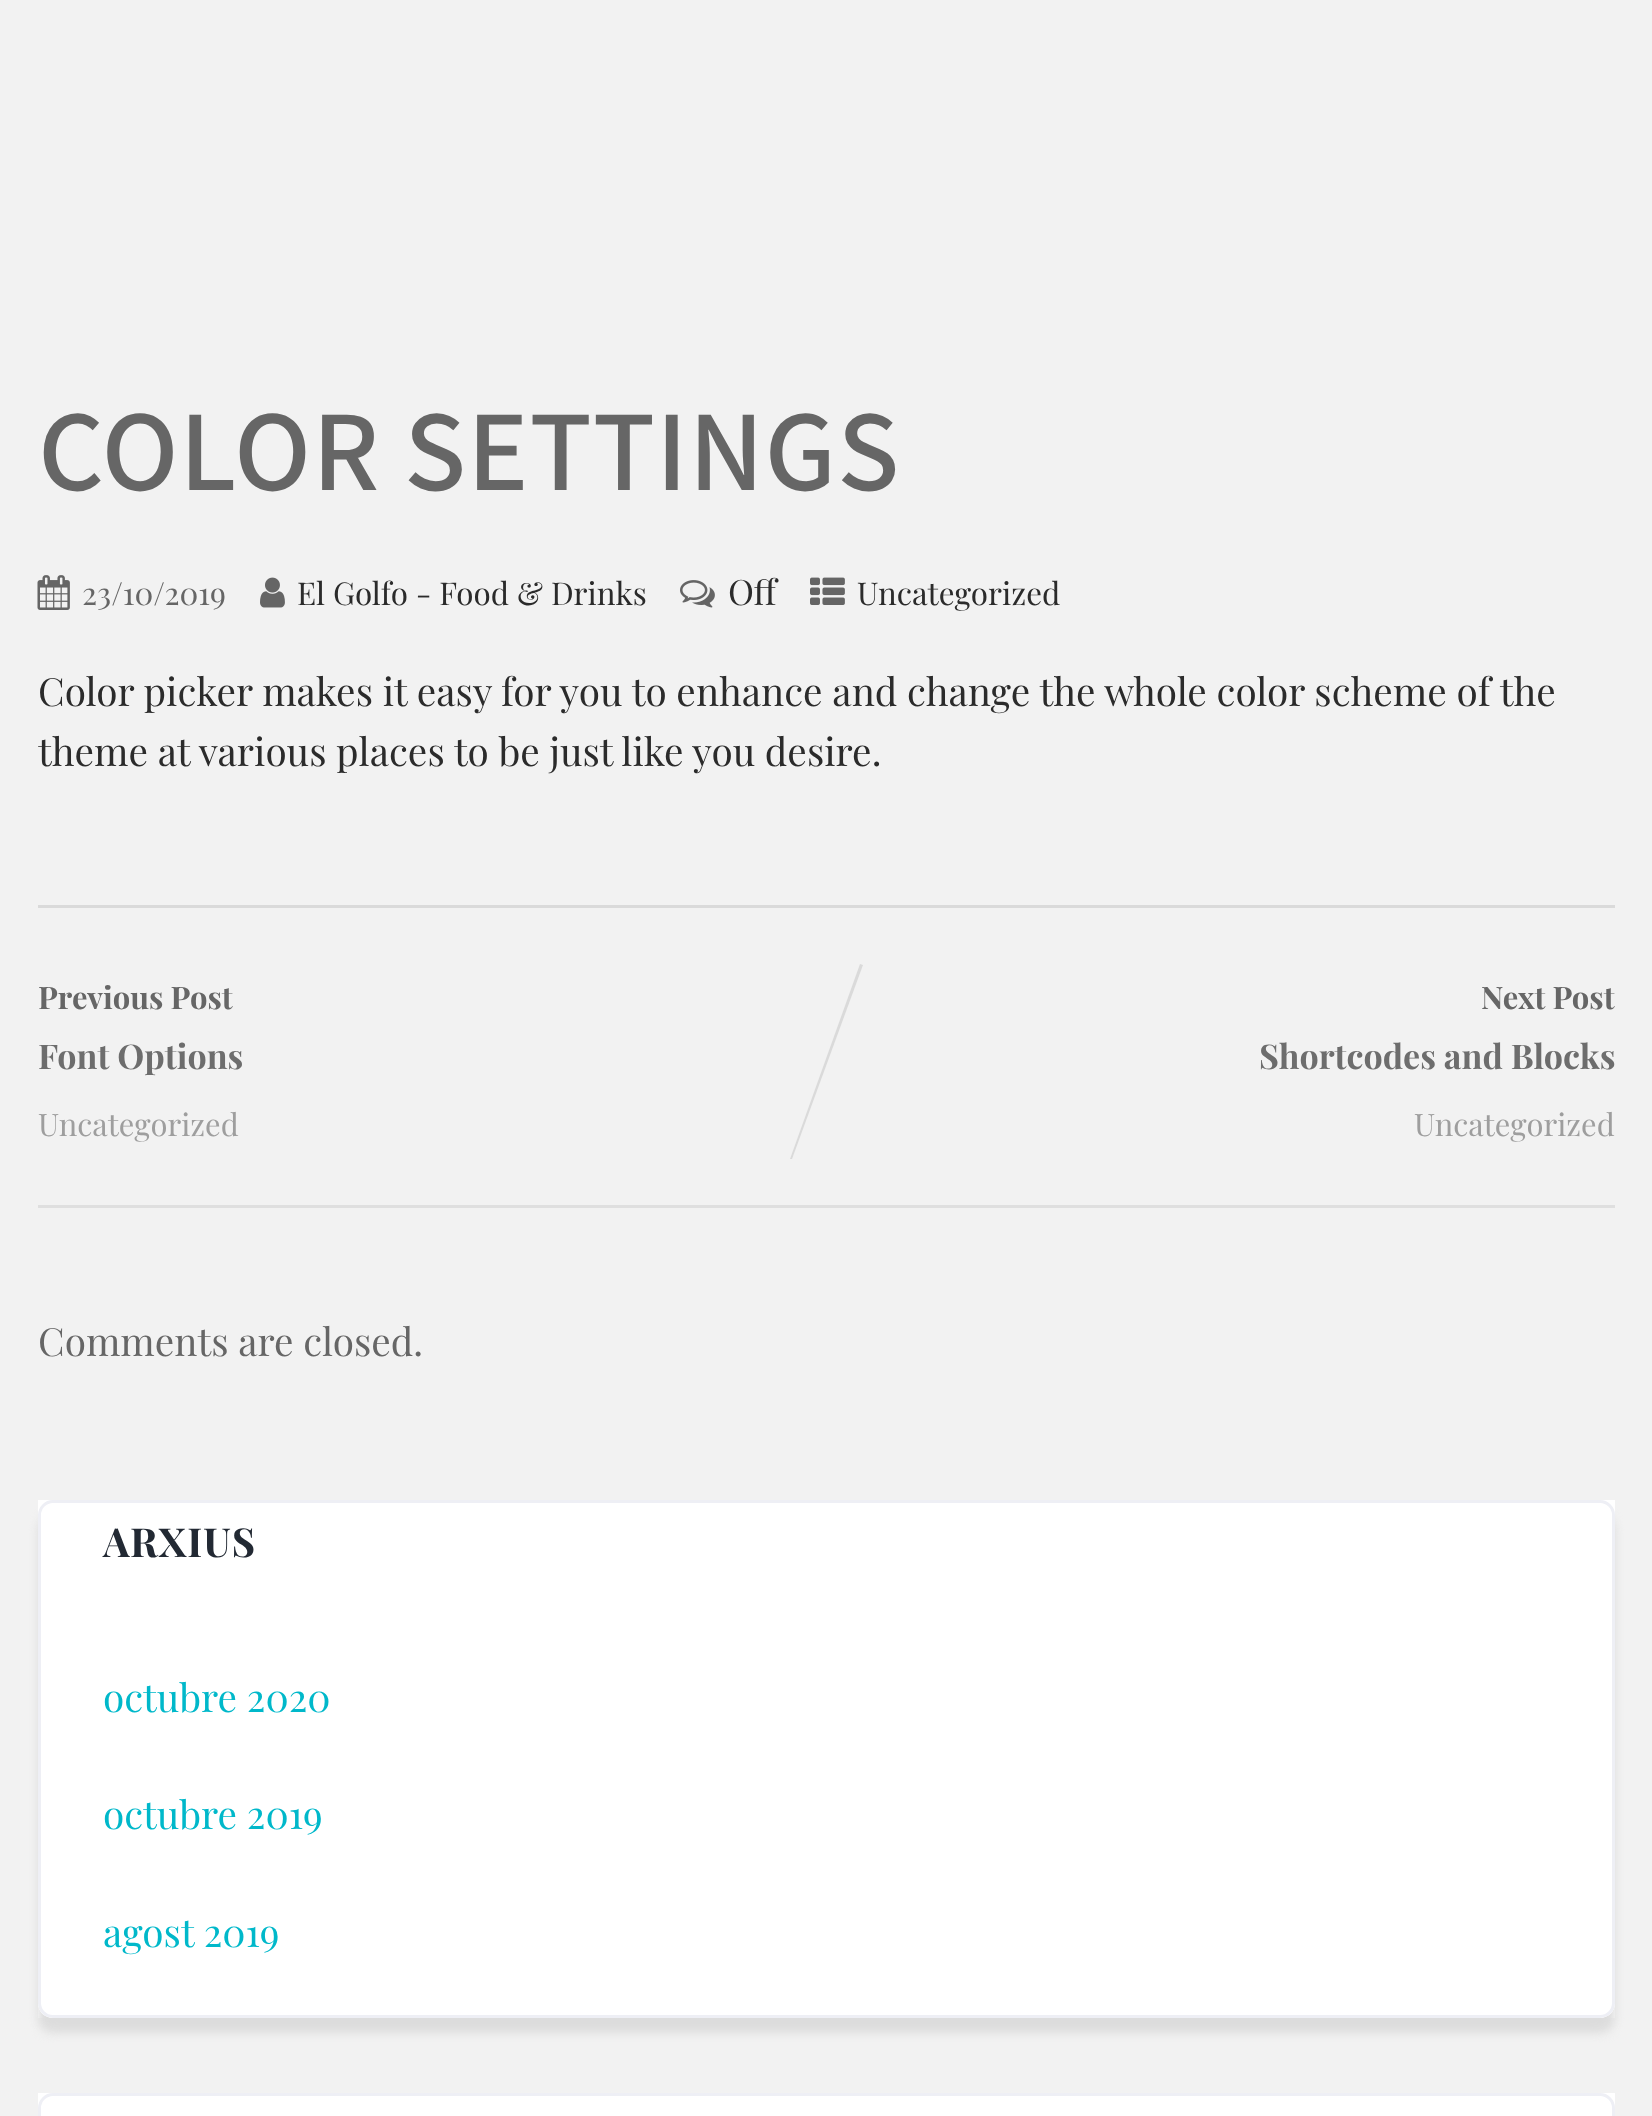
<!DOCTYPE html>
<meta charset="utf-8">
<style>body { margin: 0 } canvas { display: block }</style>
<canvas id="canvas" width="1652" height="2116"></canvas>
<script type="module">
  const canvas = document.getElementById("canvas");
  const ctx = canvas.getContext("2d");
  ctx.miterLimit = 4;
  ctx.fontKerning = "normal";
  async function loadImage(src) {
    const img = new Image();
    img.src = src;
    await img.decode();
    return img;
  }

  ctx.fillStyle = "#f2f2f2";
  ctx.fillRect(0, 0, 1652, 2116);
  ctx.letterSpacing = "1px";
  ctx.font = "600 115px Assistant";
  ctx.fillStyle = "#666666";
  ctx.fillText("COLOR SETTINGS", 38, 490);
  ctx.drawImage(await loadImage("img1.png"), 37, 575, 33, 35);
  ctx.letterSpacing = "0px";
  ctx.font = "31.4px Playfair Display";
  ctx.fillText("23/10/2019", 82, 605);
  ctx.drawImage(await loadImage("img2.png"), 260, 577, 25, 31);
  ctx.fillStyle = "#2b2b2b";
  ctx.fillText("El Golfo - Food & Drinks", 297, 605);
  ctx.drawImage(await loadImage("img3.png"), 680, 580, 35, 28);
  ctx.font = "35px Playfair Display";
  ctx.fillText("Off", 728, 605);
  ctx.drawImage(await loadImage("img4.png"), 810, 577, 35, 28);
  ctx.font = "31.4px Playfair Display";
  ctx.fillText("Uncategorized", 857, 605);
  ctx.font = "38.75px Playfair Display";
  ctx.fillText("Color picker makes it easy for you to enhance and change the whole color scheme of the", 38, 706);
  ctx.fillText("theme at various places to be just like you desire.", 38, 766);
  ctx.fillStyle = "#dadada";
  ctx.fillRect(38, 905, 1577, 3);
  ctx.fillStyle = "#dfdfdf";
  ctx.fillRect(38, 1205, 1577, 3);
  ctx.font = "bold 31px Playfair Display";
  ctx.fillStyle = "#666666";
  ctx.fillText("Previous Post", 38, 1009);
  ctx.font = "bold 34.1px Playfair Display";
  ctx.fillStyle = "#6d6d6d";
  ctx.fillText("Font Options", 38, 1069);
  ctx.font = "31px Playfair Display";
  ctx.fillStyle = "#9e9e9e";
  ctx.fillText("Uncategorized", 38, 1136);
  ctx.fillStyle = "#dadada";
  ctx.beginPath();
  ctx.moveTo(860, 964);
  ctx.lineTo(863, 965);
  ctx.lineTo(792, 1159);
  ctx.lineTo(790, 1159);
  ctx.closePath();
  ctx.fill();
  ctx.font = "bold 31px Playfair Display";
  ctx.fillStyle = "#666666";
  ctx.fillText("Next Post", 1481, 1009);
  ctx.font = "bold 34.1px Playfair Display";
  ctx.fillStyle = "#6d6d6d";
  ctx.fillText("Shortcodes and Blocks", 1259, 1069);
  ctx.font = "31px Playfair Display";
  ctx.fillStyle = "#9e9e9e";
  ctx.fillText("Uncategorized", 1414, 1136);
  ctx.font = "38.75px Playfair Display";
  ctx.fillStyle = "#666666";
  ctx.fillText("Comments are closed.", 38, 1356);
  ctx.fillStyle = "#ffffff";
  ctx.fillRect(38, 1500, 1577, 518);
  ctx.save();
  ctx.beginPath();
  ctx.moveTo(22, 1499);
  ctx.lineTo(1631, 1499);
  ctx.lineTo(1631, 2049);
  ctx.lineTo(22, 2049);
  ctx.closePath();
  ctx.moveTo(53, 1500);
  ctx.lineTo(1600, 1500);
  ctx.bezierCurveTo(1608.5, 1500, 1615, 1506.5, 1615, 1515);
  ctx.lineTo(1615, 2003);
  ctx.bezierCurveTo(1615, 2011.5, 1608.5, 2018, 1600, 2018);
  ctx.lineTo(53, 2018);
  ctx.bezierCurveTo(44.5, 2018, 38, 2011.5, 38, 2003);
  ctx.lineTo(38, 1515);
  ctx.bezierCurveTo(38, 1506.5, 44.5, 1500, 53, 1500);
  ctx.closePath();
  ctx.clip("evenodd");
  ctx.fillStyle = "#dcdcdc";
  ctx.filter = "blur(5px)";
  ctx.beginPath();
  ctx.roundRect(38, 1515, 1577, 518, 15);
  ctx.fill();
  ctx.filter = "none";
  ctx.restore();
  ctx.beginPath();
  ctx.roundRect(39.5, 1501.5, 1574, 515, 13.5);
  ctx.strokeStyle = "#eeeff5";
  ctx.lineWidth = 3;
  ctx.stroke();
  ctx.letterSpacing = "1px";
  ctx.font = "bold 40px Playfair Display";
  ctx.fillStyle = "#222933";
  ctx.fillText("ARXIUS", 103, 1557);
  ctx.letterSpacing = "0px";
  ctx.font = "38.75px Playfair Display";
  ctx.fillStyle = "#00b8ca";
  ctx.fillText("octubre 2020", 103, 1712);
  ctx.fillText("octubre 2019", 103, 1829);
  ctx.fillText("agost 2019", 103, 1947);
  ctx.fillStyle = "#ffffff";
  ctx.fillRect(38, 2093, 1577, 23);
  ctx.beginPath();
  ctx.roundRect(39.5, 2094.5, 1574, 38, 13.5);
  ctx.stroke();
</script>
